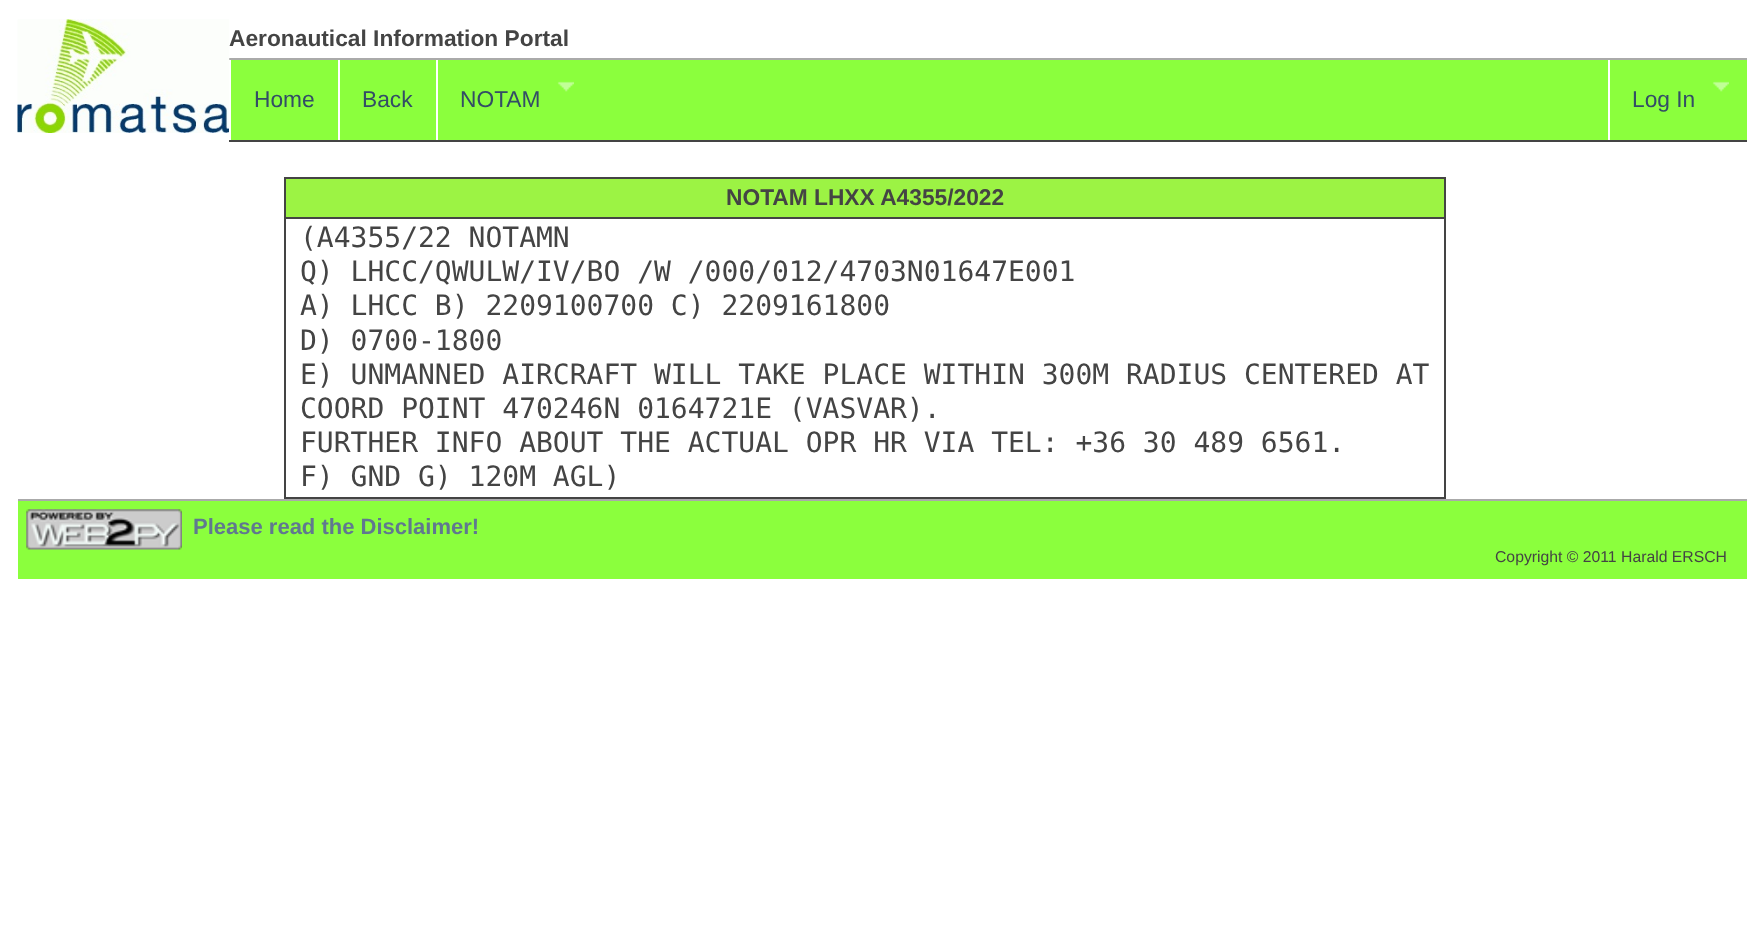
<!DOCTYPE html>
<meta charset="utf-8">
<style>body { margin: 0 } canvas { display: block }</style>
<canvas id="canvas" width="1764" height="929"></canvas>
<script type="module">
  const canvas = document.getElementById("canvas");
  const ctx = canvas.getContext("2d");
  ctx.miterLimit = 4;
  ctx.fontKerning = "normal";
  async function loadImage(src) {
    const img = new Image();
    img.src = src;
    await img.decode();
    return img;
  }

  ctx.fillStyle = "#ffffff";
  ctx.fillRect(0, 0, 1764, 929);
  ctx.fillStyle = "#aaaaaa";
  ctx.fillRect(229, 58, 1518, 2);
  ctx.drawImage(await loadImage("img1.png"), 17, 19, 213, 114);
  ctx.font = "bold 22.75px Liberation Sans";
  ctx.fillStyle = "#444444";
  ctx.fillText("Aeronautical Information Portal", 229, 46);
  ctx.fillRect(229, 140, 1518, 2);
  ctx.fillStyle = "#8bff3d";
  ctx.fillRect(340, 60, 1407, 80);
  ctx.fillRect(231, 60, 107, 80);
  ctx.fillStyle = "#ffffff";
  ctx.fillRect(229, 127, 1, 13);
  ctx.font = "22.75px Liberation Sans";
  ctx.fillStyle = "#334d66";
  ctx.fillText("Home", 254, 107);
  ctx.fillText("Back", 362, 107);
  ctx.fillStyle = "#ffffff";
  ctx.fillRect(436, 60, 2, 80);
  ctx.drawImage(await loadImage("img2.png"), 557, 81, 17, 11);
  ctx.fillStyle = "#334d66";
  ctx.fillText("NOTAM", 460, 107);
  ctx.fillStyle = "#ffffff";
  ctx.fillRect(1608, 60, 2, 80);
  ctx.drawImage(await loadImage("img3.png"), 1712, 81, 17, 11);
  ctx.fillStyle = "#334d66";
  ctx.fillText("Log In", 1632, 107);
  ctx.fillStyle = "#444444";
  ctx.fillRect(284, 177, 1162, 2);
  ctx.fillRect(1444, 177, 2, 322);
  ctx.fillRect(284, 497, 1162, 2);
  ctx.fillRect(284, 177, 2, 322);
  ctx.fillStyle = "#9cf344";
  ctx.fillRect(286, 179, 1158, 38);
  ctx.font = "bold 22.75px Liberation Sans";
  ctx.fillStyle = "#444444";
  ctx.fillText("NOTAM LHXX A4355/2022", 726, 205);
  ctx.fillRect(284, 217, 1162, 2);
  ctx.font = "28px DejaVu Sans Mono";
  ctx.fillText("(A4355/22 NOTAMN", 300, 247);
  ctx.fillText("Q) LHCC/QWULW/IV/BO /W /000/012/4703N01647E001", 300, 281);
  ctx.fillText("A) LHCC B) 2209100700 C) 2209161800", 300, 315);
  ctx.fillText("D) 0700-1800", 300, 350);
  ctx.fillText("E) UNMANNED AIRCRAFT WILL TAKE PLACE WITHIN 300M RADIUS CENTERED AT", 300, 384);
  ctx.fillText("COORD POINT 470246N 0164721E (VASVAR).", 300, 418);
  ctx.fillText("FURTHER INFO ABOUT THE ACTUAL OPR HR VIA TEL: +36 30 489 6561.", 300, 452);
  ctx.fillText("F) GND G) 120M AGL)", 300, 486);
  ctx.fillStyle = "#8bff3d";
  ctx.fillRect(18, 501, 1729, 78);
  ctx.fillStyle = "#aaaaaa";
  ctx.fillRect(18, 499, 1729, 2);
  ctx.drawImage(await loadImage("img4.png"), 26, 509, 156, 41);
  ctx.font = "bold 22px Liberation Sans";
  ctx.fillStyle = "#607890";
  ctx.fillText("Please read the Disclaimer!", 193, 534);
  ctx.font = "15.75px Liberation Sans";
  ctx.fillStyle = "#444444";
  ctx.fillText("Copyright © 2011 Harald ERSCH", 1495, 562);
</script>
